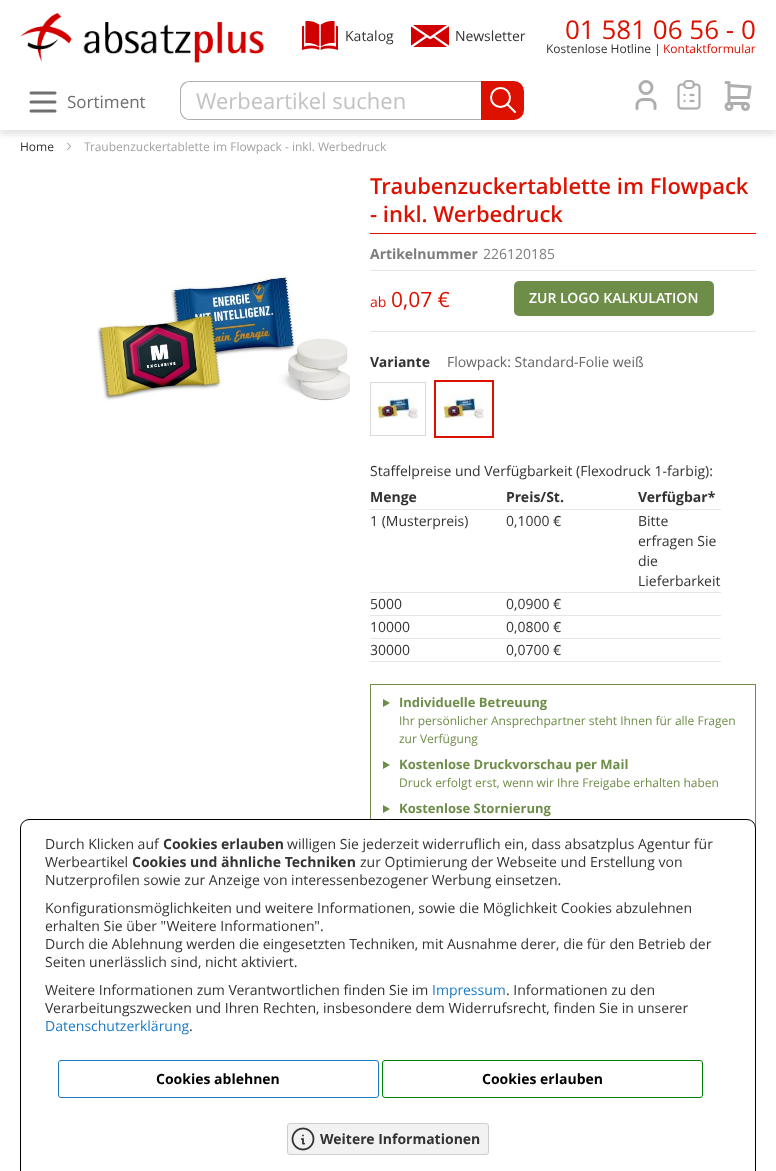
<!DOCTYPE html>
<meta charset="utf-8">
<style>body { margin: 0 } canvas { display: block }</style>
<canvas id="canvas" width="776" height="1171"></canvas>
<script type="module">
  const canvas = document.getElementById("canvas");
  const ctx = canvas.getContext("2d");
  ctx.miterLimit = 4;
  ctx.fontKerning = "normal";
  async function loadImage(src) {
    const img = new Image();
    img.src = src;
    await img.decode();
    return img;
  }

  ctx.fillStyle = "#ffffff";
  ctx.fillRect(0, 0, 776, 1171);
  ctx.drawImage(await loadImage("img5.png"), 66, 142, 6, 9);
  ctx.save();
  ctx.beginPath();
  ctx.rect(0, 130, 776, 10);
  ctx.clip();
  ctx.fillStyle = "#e6e6e6";
  ctx.filter = "blur(2.5px)";
  ctx.beginPath();
  ctx.rect(0, 5, 776, 130);
  ctx.fill();
  ctx.filter = "none";
  ctx.restore();
  ctx.drawImage(await loadImage("img1.png"), 20, 13, 244, 50);
  ctx.drawImage(await loadImage("img2.png"), 302, 21, 36, 29);
  ctx.font = "14px Open Sans";
  ctx.fillStyle = "#333333";
  ctx.fillText("Katalog", 345, 41);
  ctx.drawImage(await loadImage("img3.png"), 411, 25, 38, 22);
  ctx.fillText("Newsletter", 455, 41);
  ctx.font = "26px Open Sans";
  ctx.fillStyle = "#dd1100";
  ctx.fillText("01 581 06 56 - 0", 565, 39);
  ctx.font = "12px Open Sans";
  ctx.fillStyle = "#333333";
  ctx.fillText("Kostenlose Hotline |", 546, 53);
  ctx.fillStyle = "#dd1100";
  ctx.fillText("Kontaktformular", 663, 53);
  ctx.beginPath();
  ctx.arc(646, 87.5, 6, 0, Math.PI * 2);
  ctx.strokeStyle = "#aeaeae";
  ctx.lineWidth = 3;
  ctx.stroke();
  ctx.beginPath();
  ctx.moveTo(637, 108.5);
  ctx.lineTo(637, 105.5);
  ctx.bezierCurveTo(637, 102, 639.5, 99.5, 643, 99.5);
  ctx.lineTo(649, 99.5);
  ctx.bezierCurveTo(652.5, 99.5, 655, 102, 655, 105.5);
  ctx.lineTo(655, 108.5);
  ctx.lineCap = "round";
  ctx.lineJoin = "round";
  ctx.stroke();
  ctx.drawImage(await loadImage("img4.png"), 677, 80, 24, 30);
  ctx.beginPath();
  ctx.arc(729, 106.5, 3, 0, Math.PI * 2);
  ctx.stroke();
  ctx.beginPath();
  ctx.arc(745.5, 106.5, 3, 0, Math.PI * 2);
  ctx.stroke();
  ctx.beginPath();
  ctx.moveTo(745.5, 103.5);
  ctx.lineTo(729, 103.5);
  ctx.lineTo(729, 82.5);
  ctx.lineTo(726, 82.5);
  ctx.moveTo(729, 85.5);
  ctx.lineTo(750, 87);
  ctx.lineTo(748.5, 97.5);
  ctx.lineTo(729, 97.5);
  ctx.stroke();
  ctx.beginPath();
  ctx.moveTo(31, 93);
  ctx.lineTo(55, 93);
  ctx.moveTo(31, 102);
  ctx.lineTo(55, 102);
  ctx.moveTo(31, 111);
  ctx.lineTo(55, 111);
  ctx.strokeStyle = "#706e6f";
  ctx.stroke();
  ctx.font = "17px Open Sans";
  ctx.fillStyle = "#706e6f";
  ctx.fillText("Sortiment", 67, 108);
  ctx.fillStyle = "#aeaeae";
  ctx.beginPath();
  ctx.moveTo(190, 81);
  ctx.lineTo(481, 81);
  ctx.lineTo(481, 120);
  ctx.lineTo(190, 120);
  ctx.bezierCurveTo(184, 120, 180, 116, 180, 110);
  ctx.lineTo(180, 91);
  ctx.bezierCurveTo(180, 85, 184, 81, 190, 81);
  ctx.closePath();
  ctx.moveTo(190, 82);
  ctx.lineTo(481, 82);
  ctx.lineTo(481, 119);
  ctx.lineTo(190, 119);
  ctx.bezierCurveTo(185, 119, 181, 115, 181, 110);
  ctx.lineTo(181, 91);
  ctx.bezierCurveTo(181, 86, 185, 82, 190, 82);
  ctx.closePath();
  ctx.fill("evenodd");
  ctx.fillStyle = "#ffffff";
  ctx.beginPath();
  ctx.roundRect(187, 82, 294, 37, 1);
  ctx.fill();
  ctx.font = "22px Open Sans";
  ctx.fillStyle = "#c2c2c2";
  ctx.fillText("Werbeartikel suchen", 196, 109);
  ctx.fillStyle = "#dd1100";
  ctx.beginPath();
  ctx.roundRect(481, 81, 43, 39, [0, 10, 10, 0]);
  ctx.fill();
  ctx.beginPath();
  ctx.arc(500.5, 97.5, 9.5, 0, Math.PI * 2);
  ctx.strokeStyle = "#ffffff";
  ctx.lineWidth = 2;
  ctx.stroke();
  ctx.beginPath();
  ctx.moveTo(515, 112);
  ctx.lineTo(507, 104);
  ctx.stroke();
  ctx.font = "12px Open Sans";
  ctx.fillStyle = "#333333";
  ctx.fillText("Home", 20, 151);
  ctx.fillStyle = "#a3a3a3";
  ctx.fillText("Traubenzuckertablette im Flowpack - inkl. Werbedruck", 84, 151);
  ctx.drawImage(await loadImage("img6.png"), 97, 275, 253, 126);
  ctx.fillStyle = "#dd1100";
  ctx.fillRect(370, 233, 386, 1);
  ctx.font = "600 22px Open Sans";
  ctx.fillText("Traubenzuckertablette im Flowpack", 370, 194);
  ctx.fillText("- inkl. Werbedruck", 370, 222);
  ctx.fillStyle = "#e6e6e6";
  ctx.fillRect(370, 270, 386, 1);
  ctx.font = "bold 14px Open Sans";
  ctx.fillStyle = "#7d7d7d";
  ctx.fillText("Artikelnummer", 370, 259);
  ctx.font = "14px Open Sans";
  ctx.fillText("226120185", 483, 259);
  ctx.fillStyle = "#e6e6e6";
  ctx.fillRect(370, 331, 386, 1);
  ctx.fillStyle = "#dd1100";
  ctx.fillText("ab", 370, 307);
  ctx.font = "21px Open Sans";
  ctx.fillText("0,07 €", 391, 307);
  ctx.fillStyle = "#6e8d49";
  ctx.beginPath();
  ctx.roundRect(514, 281, 200, 35, 5);
  ctx.fill();
  ctx.font = "600 14px Open Sans";
  ctx.fillStyle = "#ffffff";
  ctx.fillText("ZUR LOGO KALKULATION", 529, 303);
  ctx.font = "bold 14px Open Sans";
  ctx.fillStyle = "#333333";
  ctx.fillText("Variante", 370, 367);
  ctx.font = "14px Open Sans";
  ctx.fillStyle = "#646464";
  ctx.fillText("Flowpack: Standard-Folie weiß", 447, 367);
  ctx.drawImage(await loadImage("img7.png"), 378, 389, 40, 30);
  ctx.strokeStyle = "#dadada";
  ctx.lineWidth = 1;
  ctx.lineJoin = "miter";
  ctx.strokeRect(370.5, 382.5, 55, 53);
  ctx.drawImage(await loadImage("img7.png"), 444, 389, 40, 30);
  ctx.strokeStyle = "#dd1100";
  ctx.lineWidth = 2;
  ctx.strokeRect(435, 381, 58, 56);
  ctx.fillStyle = "#333333";
  ctx.fillText("Staffelpreise und Verfügbarkeit (Flexodruck 1-farbig):", 370, 476);
  ctx.fillStyle = "#e6e6e6";
  ctx.fillRect(370, 509, 351, 1);
  ctx.font = "bold 14px Open Sans";
  ctx.fillStyle = "#333333";
  ctx.fillText("Menge", 370, 502);
  ctx.fillText("Preis/St.", 506, 502);
  ctx.fillText("Verfügbar*", 638, 502);
  ctx.fillStyle = "#e6e6e6";
  ctx.fillRect(370, 592, 351, 1);
  ctx.font = "14px Open Sans";
  ctx.fillStyle = "#333333";
  ctx.fillText("1 (Musterpreis)", 370, 526);
  ctx.fillText("0,1000 €", 506, 526);
  ctx.fillText("Bitte", 638, 526);
  ctx.fillText("erfragen Sie", 638, 546);
  ctx.fillText("die", 638, 566);
  ctx.fillText("Lieferbarkeit", 638, 586);
  ctx.fillStyle = "#e6e6e6";
  ctx.fillRect(370, 615, 351, 1);
  ctx.fillStyle = "#333333";
  ctx.fillText("5000", 370, 609);
  ctx.fillText("0,0900 €", 506, 609);
  ctx.fillStyle = "#e6e6e6";
  ctx.fillRect(370, 638, 351, 1);
  ctx.fillStyle = "#333333";
  ctx.fillText("10000", 370, 632);
  ctx.fillText("0,0800 €", 506, 632);
  ctx.fillStyle = "#e6e6e6";
  ctx.fillRect(370, 661, 351, 1);
  ctx.fillStyle = "#333333";
  ctx.fillText("30000", 370, 655);
  ctx.fillText("0,0700 €", 506, 655);
  ctx.strokeStyle = "#6e8d49";
  ctx.lineWidth = 1;
  ctx.strokeRect(370.5, 684.5, 385, 229);
  ctx.fillStyle = "#6e8d49";
  ctx.beginPath();
  ctx.moveTo(383, 699);
  ctx.lineTo(390, 703);
  ctx.lineTo(383, 707);
  ctx.closePath();
  ctx.fill();
  ctx.font = "bold 13px Open Sans";
  ctx.fillText("Individuelle Betreuung", 399, 707);
  ctx.font = "12px Open Sans";
  ctx.fillText("Ihr persönlicher Ansprechpartner steht Ihnen für alle Fragen", 399, 725);
  ctx.fillText("zur Verfügung", 399, 743);
  ctx.beginPath();
  ctx.moveTo(383, 761);
  ctx.lineTo(390, 765);
  ctx.lineTo(383, 769);
  ctx.closePath();
  ctx.fill();
  ctx.font = "bold 13px Open Sans";
  ctx.fillText("Kostenlose Druckvorschau per Mail", 399, 769);
  ctx.font = "12px Open Sans";
  ctx.fillText("Druck erfolgt erst, wenn wir Ihre Freigabe erhalten haben", 399, 787);
  ctx.beginPath();
  ctx.moveTo(383, 805);
  ctx.lineTo(390, 809);
  ctx.lineTo(383, 813);
  ctx.closePath();
  ctx.fill();
  ctx.font = "bold 13px Open Sans";
  ctx.fillText("Kostenlose Stornierung", 399, 813);
  ctx.fillStyle = "#ffffff";
  ctx.beginPath();
  ctx.roundRect(20.5, 819.5, 735, 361, 8.5);
  ctx.fill();
  ctx.strokeStyle = "#000000";
  ctx.stroke();
  ctx.font = "14px Open Sans";
  ctx.fillStyle = "#333333";
  ctx.fillText("Durch Klicken auf", 45, 849);
  ctx.font = "bold 14px Open Sans";
  ctx.fillText("Cookies erlauben", 163, 849);
  ctx.font = "14px Open Sans";
  ctx.fillText("willigen Sie jederzeit widerruflich ein, dass absatzplus Agentur für", 287, 849);
  ctx.fillText("Werbeartikel", 45, 867);
  ctx.font = "bold 14px Open Sans";
  ctx.fillText("Cookies und ähnliche Techniken", 132, 867);
  ctx.font = "14px Open Sans";
  ctx.fillText("zur Optimierung der Webseite und Erstellung von", 360, 867);
  ctx.fillText("Nutzerprofilen sowie zur Anzeige von interessenbezogener Werbung einsetzen.", 45, 885);
  ctx.fillText("Konfigurationsmöglichkeiten und weitere Informationen, sowie die Möglichkeit Cookies abzulehnen", 45, 913);
  ctx.fillText("erhalten Sie über \"Weitere Informationen\".", 45, 931);
  ctx.fillText("Durch die Ablehnung werden die eingesetzten Techniken, mit Ausnahme derer, die für den Betrieb der", 45, 949);
  ctx.fillText("Seiten unerlässlich sind, nicht aktiviert.", 45, 967);
  ctx.fillText("Weitere Informationen zum Verantwortlichen finden Sie im", 45, 995);
  ctx.fillStyle = "#1979c3";
  ctx.fillText("Impressum", 432, 995);
  ctx.fillStyle = "#333333";
  ctx.fillText(". Informationen zu den", 506, 995);
  ctx.fillText("Verarbeitungszwecken und Ihren Rechten, insbesondere dem Widerrufsrecht, finden Sie in unserer", 45, 1013);
  ctx.fillStyle = "#1979c3";
  ctx.fillText("Datenschutzerklärung", 45, 1031);
  ctx.fillStyle = "#333333";
  ctx.fillText(".", 189, 1031);
  ctx.beginPath();
  ctx.roundRect(58.5, 1060.5, 320, 37, 2.5);
  ctx.strokeStyle = "#1979c3";
  ctx.stroke();
  ctx.font = "bold 14px Open Sans";
  ctx.fillStyle = "#000000";
  ctx.fillText("Cookies ablehnen", 156, 1084);
  ctx.beginPath();
  ctx.roundRect(382.5, 1060.5, 320, 37, 2.5);
  ctx.strokeStyle = "#008000";
  ctx.stroke();
  ctx.fillText("Cookies erlauben", 482, 1084);
  ctx.fillStyle = "#f2f2f2";
  ctx.beginPath();
  ctx.roundRect(287.5, 1123.5, 201, 31, 2.5);
  ctx.fill();
  ctx.strokeStyle = "#cdcdcd";
  ctx.stroke();
  ctx.drawImage(await loadImage("img8.png"), 291, 1127, 24, 24);
  ctx.fillStyle = "#333333";
  ctx.fillText("Weitere Informationen", 320, 1144);
</script>
